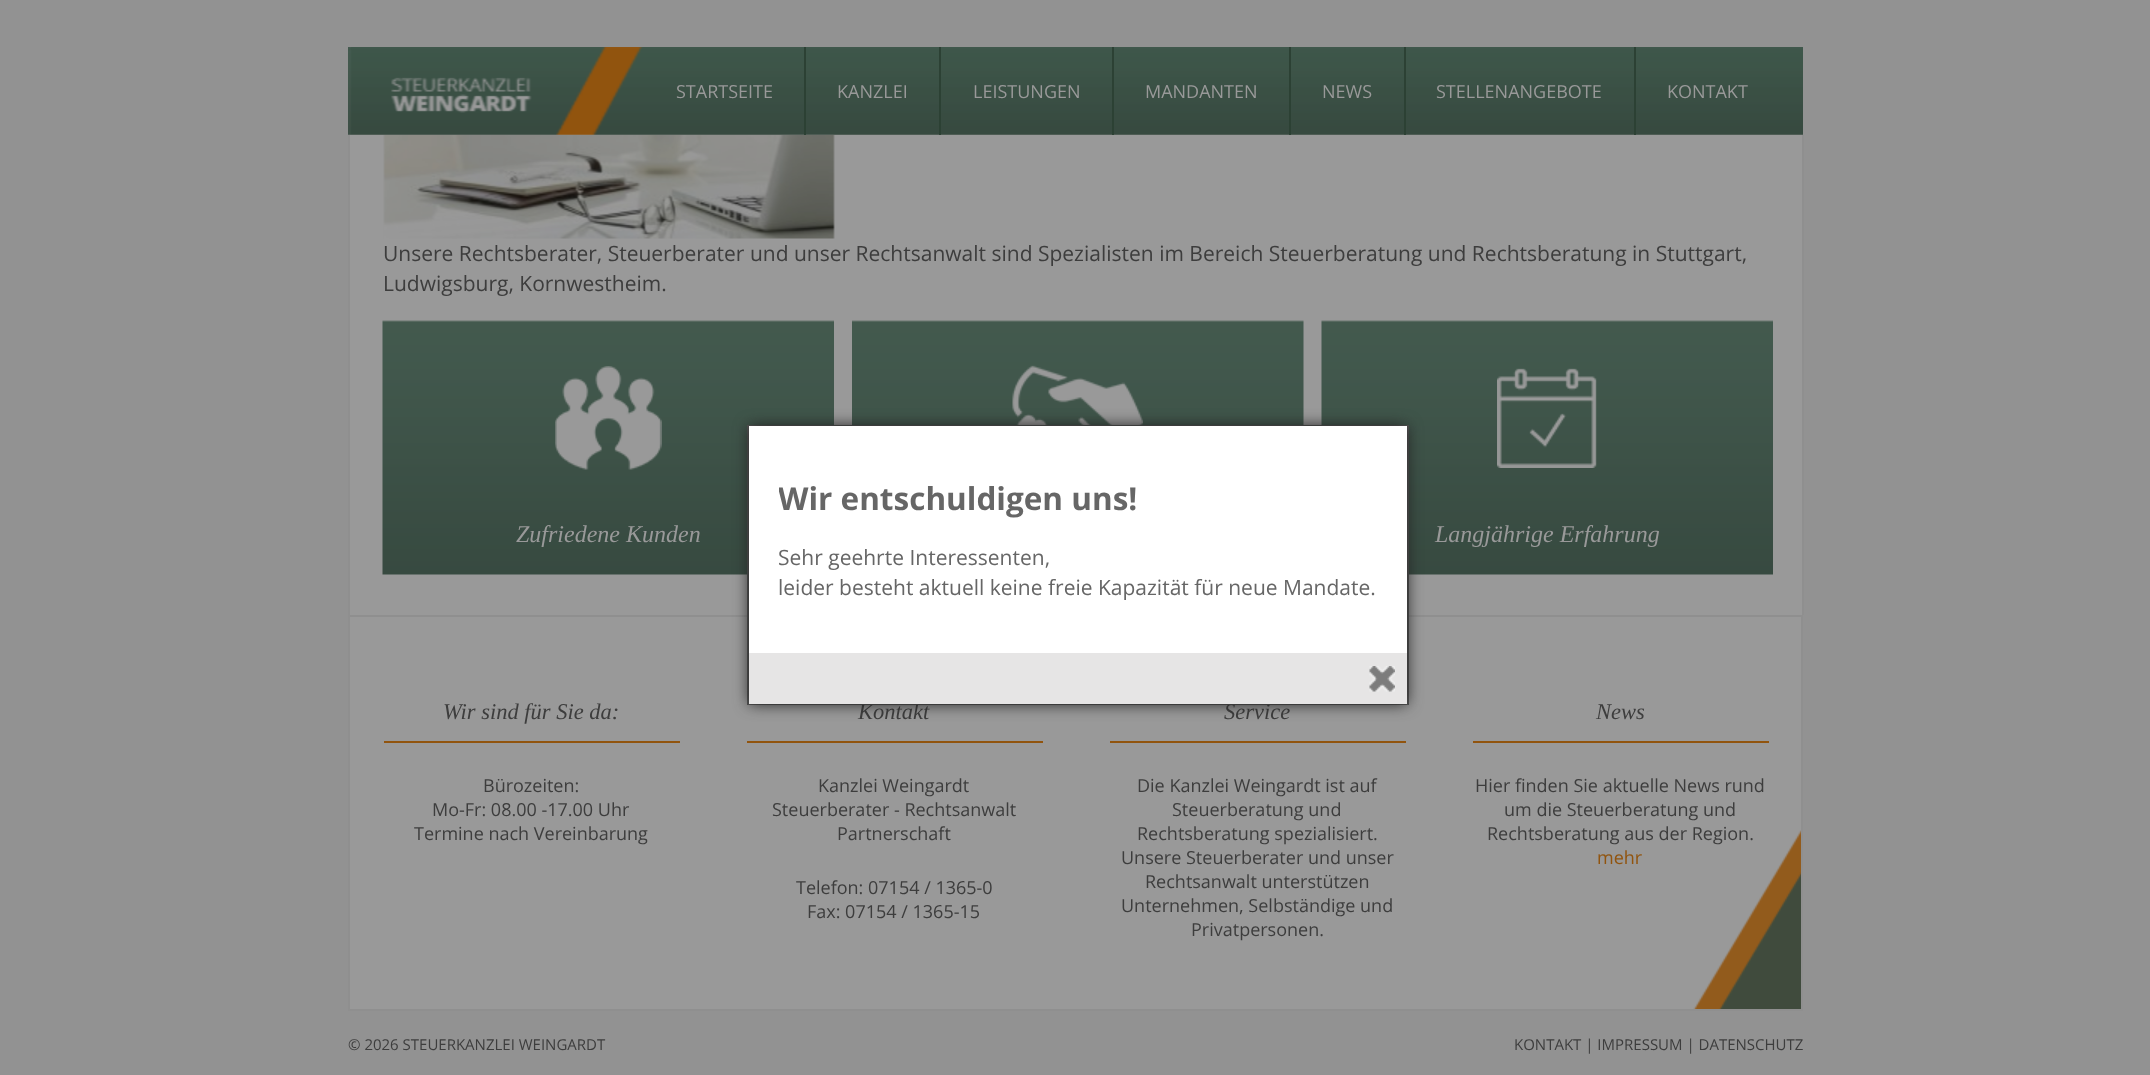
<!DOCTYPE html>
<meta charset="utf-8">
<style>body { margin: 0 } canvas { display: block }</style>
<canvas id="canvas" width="2150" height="1075"></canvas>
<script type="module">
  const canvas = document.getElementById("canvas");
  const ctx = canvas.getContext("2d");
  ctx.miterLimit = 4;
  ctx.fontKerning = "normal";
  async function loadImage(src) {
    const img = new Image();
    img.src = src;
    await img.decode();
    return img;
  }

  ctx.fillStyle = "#929292";
  ctx.fillRect(0, 0, 2150, 1075);
  ctx.drawImage(await loadImage("img1.png"), 348, 47, 1455, 88);
  ctx.drawImage(await loadImage("img2.png"), 391, 77, 141, 36);
  ctx.fillStyle = "#2c4134";
  ctx.fillRect(804, 47, 2, 88);
  ctx.font = "18px Open Sans";
  ctx.fillStyle = "#999999";
  ctx.fillText("STARTSEITE", 676, 98);
  ctx.fillStyle = "#2c4134";
  ctx.fillRect(939, 47, 2, 88);
  ctx.fillStyle = "#999999";
  ctx.fillText("KANZLEI", 837, 98);
  ctx.fillStyle = "#2c4134";
  ctx.fillRect(1112, 47, 2, 88);
  ctx.fillStyle = "#999999";
  ctx.fillText("LEISTUNGEN", 973, 98);
  ctx.fillStyle = "#2c4134";
  ctx.fillRect(1289, 47, 2, 88);
  ctx.fillStyle = "#999999";
  ctx.fillText("MANDANTEN", 1145, 98);
  ctx.fillStyle = "#2c4134";
  ctx.fillRect(1404, 47, 2, 88);
  ctx.fillStyle = "#999999";
  ctx.fillText("NEWS", 1322, 98);
  ctx.fillStyle = "#2c4134";
  ctx.fillRect(1634, 47, 2, 88);
  ctx.fillStyle = "#999999";
  ctx.fillText("STELLENANGEBOTE", 1436, 98);
  ctx.fillText("KONTAKT", 1667, 98);
  ctx.fillRect(350, 135, 1452, 480);
  ctx.fillStyle = "#8f8f8f";
  ctx.fillRect(1802, 135, 2, 480);
  ctx.fillRect(348, 135, 2, 480);
  ctx.drawImage(await loadImage("img3.png"), 383, 135, 452, 104);
  ctx.font = "21px Open Sans";
  ctx.fillStyle = "#3d3d3d";
  ctx.fillText("Unsere Rechtsberater, Steuerberater und unser Rechtsanwalt sind Spezialisten im Bereich Steuerberatung und Rechtsberatung in Stuttgart,", 383, 261);
  ctx.fillText("Ludwigsburg, Kornwestheim.", 383, 291);
  ctx.drawImage(await loadImage("img4.png"), 852, 320, 452, 105);
  ctx.drawImage(await loadImage("img5.png"), 1012, 365, 131, 60);
  ctx.drawImage(await loadImage("img6.png"), 382, 320, 452, 255);
  ctx.drawImage(await loadImage("img7.png"), 555, 366, 107, 104);
  ctx.font = "italic 24px Liberation Serif";
  ctx.fillStyle = "#999999";
  ctx.fillText("Zufriedene Kunden", 516, 542);
  ctx.drawImage(await loadImage("img6.png"), 1321, 320, 452, 255);
  ctx.drawImage(await loadImage("img8.png"), 1497, 368, 100, 100);
  ctx.fillText("Langjährige Erfahrung", 1435, 542);
  ctx.fillRect(350, 617, 1451, 392);
  ctx.drawImage(await loadImage("img9.png"), 1693, 830, 108, 179);
  ctx.strokeStyle = "#8f8f8f";
  ctx.lineWidth = 2;
  ctx.strokeRect(349, 616, 1453, 394);
  ctx.fillStyle = "#91540e";
  ctx.fillRect(384, 741, 296, 2);
  ctx.font = "italic 22.5px Liberation Serif";
  ctx.fillStyle = "#3d3d3d";
  ctx.fillText("Wir sind für Sie da:", 443, 719);
  ctx.font = "18px Open Sans";
  ctx.fillText("Bürozeiten:", 483, 792);
  ctx.fillText("Mo-Fr: 08.00 -17.00 Uhr", 432, 816);
  ctx.fillText("Termine nach Vereinbarung", 414, 840);
  ctx.fillStyle = "#91540e";
  ctx.fillRect(747, 741, 296, 2);
  ctx.font = "italic 22.5px Liberation Serif";
  ctx.fillStyle = "#3d3d3d";
  ctx.fillText("Kontakt", 858, 719);
  ctx.font = "18px Open Sans";
  ctx.fillText("Kanzlei Weingardt", 818, 792);
  ctx.fillText("Steuerberater - Rechtsanwalt", 772, 816);
  ctx.fillText("Partnerschaft", 837, 840);
  ctx.fillText("Telefon: 07154 / 1365-0", 796, 894);
  ctx.fillText("Fax: 07154 / 1365-15", 807, 918);
  ctx.fillStyle = "#91540e";
  ctx.fillRect(1110, 741, 296, 2);
  ctx.font = "italic 22.5px Liberation Serif";
  ctx.fillStyle = "#3d3d3d";
  ctx.fillText("Service", 1224, 719);
  ctx.font = "18px Open Sans";
  ctx.fillText("Die Kanzlei Weingardt ist auf", 1137, 792);
  ctx.fillText("Steuerberatung und", 1172, 816);
  ctx.fillText("Rechtsberatung spezialisiert.", 1137, 840);
  ctx.fillText("Unsere Steuerberater und unser", 1121, 864);
  ctx.fillText("Rechtsanwalt unterstützen", 1145, 888);
  ctx.fillText("Unternehmen, Selbständige und", 1121, 912);
  ctx.fillText("Privatpersonen.", 1191, 936);
  ctx.fillStyle = "#91540e";
  ctx.fillRect(1473, 741, 296, 2);
  ctx.font = "italic 22.5px Liberation Serif";
  ctx.fillStyle = "#3d3d3d";
  ctx.fillText("News", 1596, 719);
  ctx.font = "18px Open Sans";
  ctx.fillText("Hier finden Sie aktuelle News rund", 1475, 792);
  ctx.fillText("um die Steuerberatung und", 1504, 816);
  ctx.fillText("Rechtsberatung aus der Region.", 1487, 840);
  ctx.fillStyle = "#91540e";
  ctx.fillText("mehr", 1597, 864);
  ctx.font = "15px Open Sans";
  ctx.fillStyle = "#3d3d3d";
  ctx.fillText("© 2026 STEUERKANZLEI WEINGARDT", 348, 1050);
  ctx.fillText("KONTAKT | IMPRESSUM | DATENSCHUTZ", 1514, 1050);
  ctx.strokeStyle = "#555555";
  ctx.strokeRect(748, 426, 660, 278);
  ctx.fillStyle = "#222222";
  ctx.filter = "blur(7.5px)";
  ctx.beginPath();
  ctx.rect(749, 426, 658, 278);
  ctx.fill();
  ctx.filter = "none";
  ctx.fillStyle = "#ffffff";
  ctx.fillRect(749, 426, 658, 227);
  ctx.fillStyle = "#e6e5e5";
  ctx.fillRect(749, 653, 658, 51);
  ctx.save();
  ctx.beginPath();
  ctx.rect(779, 456, 598, 167);
  ctx.clip();
  ctx.font = "bold 31.5px Open Sans";
  ctx.fillStyle = "#666666";
  ctx.fillText("Wir entschuldigen uns!", 778, 510);
  ctx.restore();
  ctx.font = "21px Open Sans";
  ctx.fillStyle = "#666666";
  ctx.fillText("Sehr geehrte Interessenten,", 778, 565);
  ctx.fillText("leider besteht aktuell keine freie Kapazität für neue Mandate.", 778, 595);
  ctx.drawImage(await loadImage("img10.png"), 1369, 666, 26, 26);
</script>
